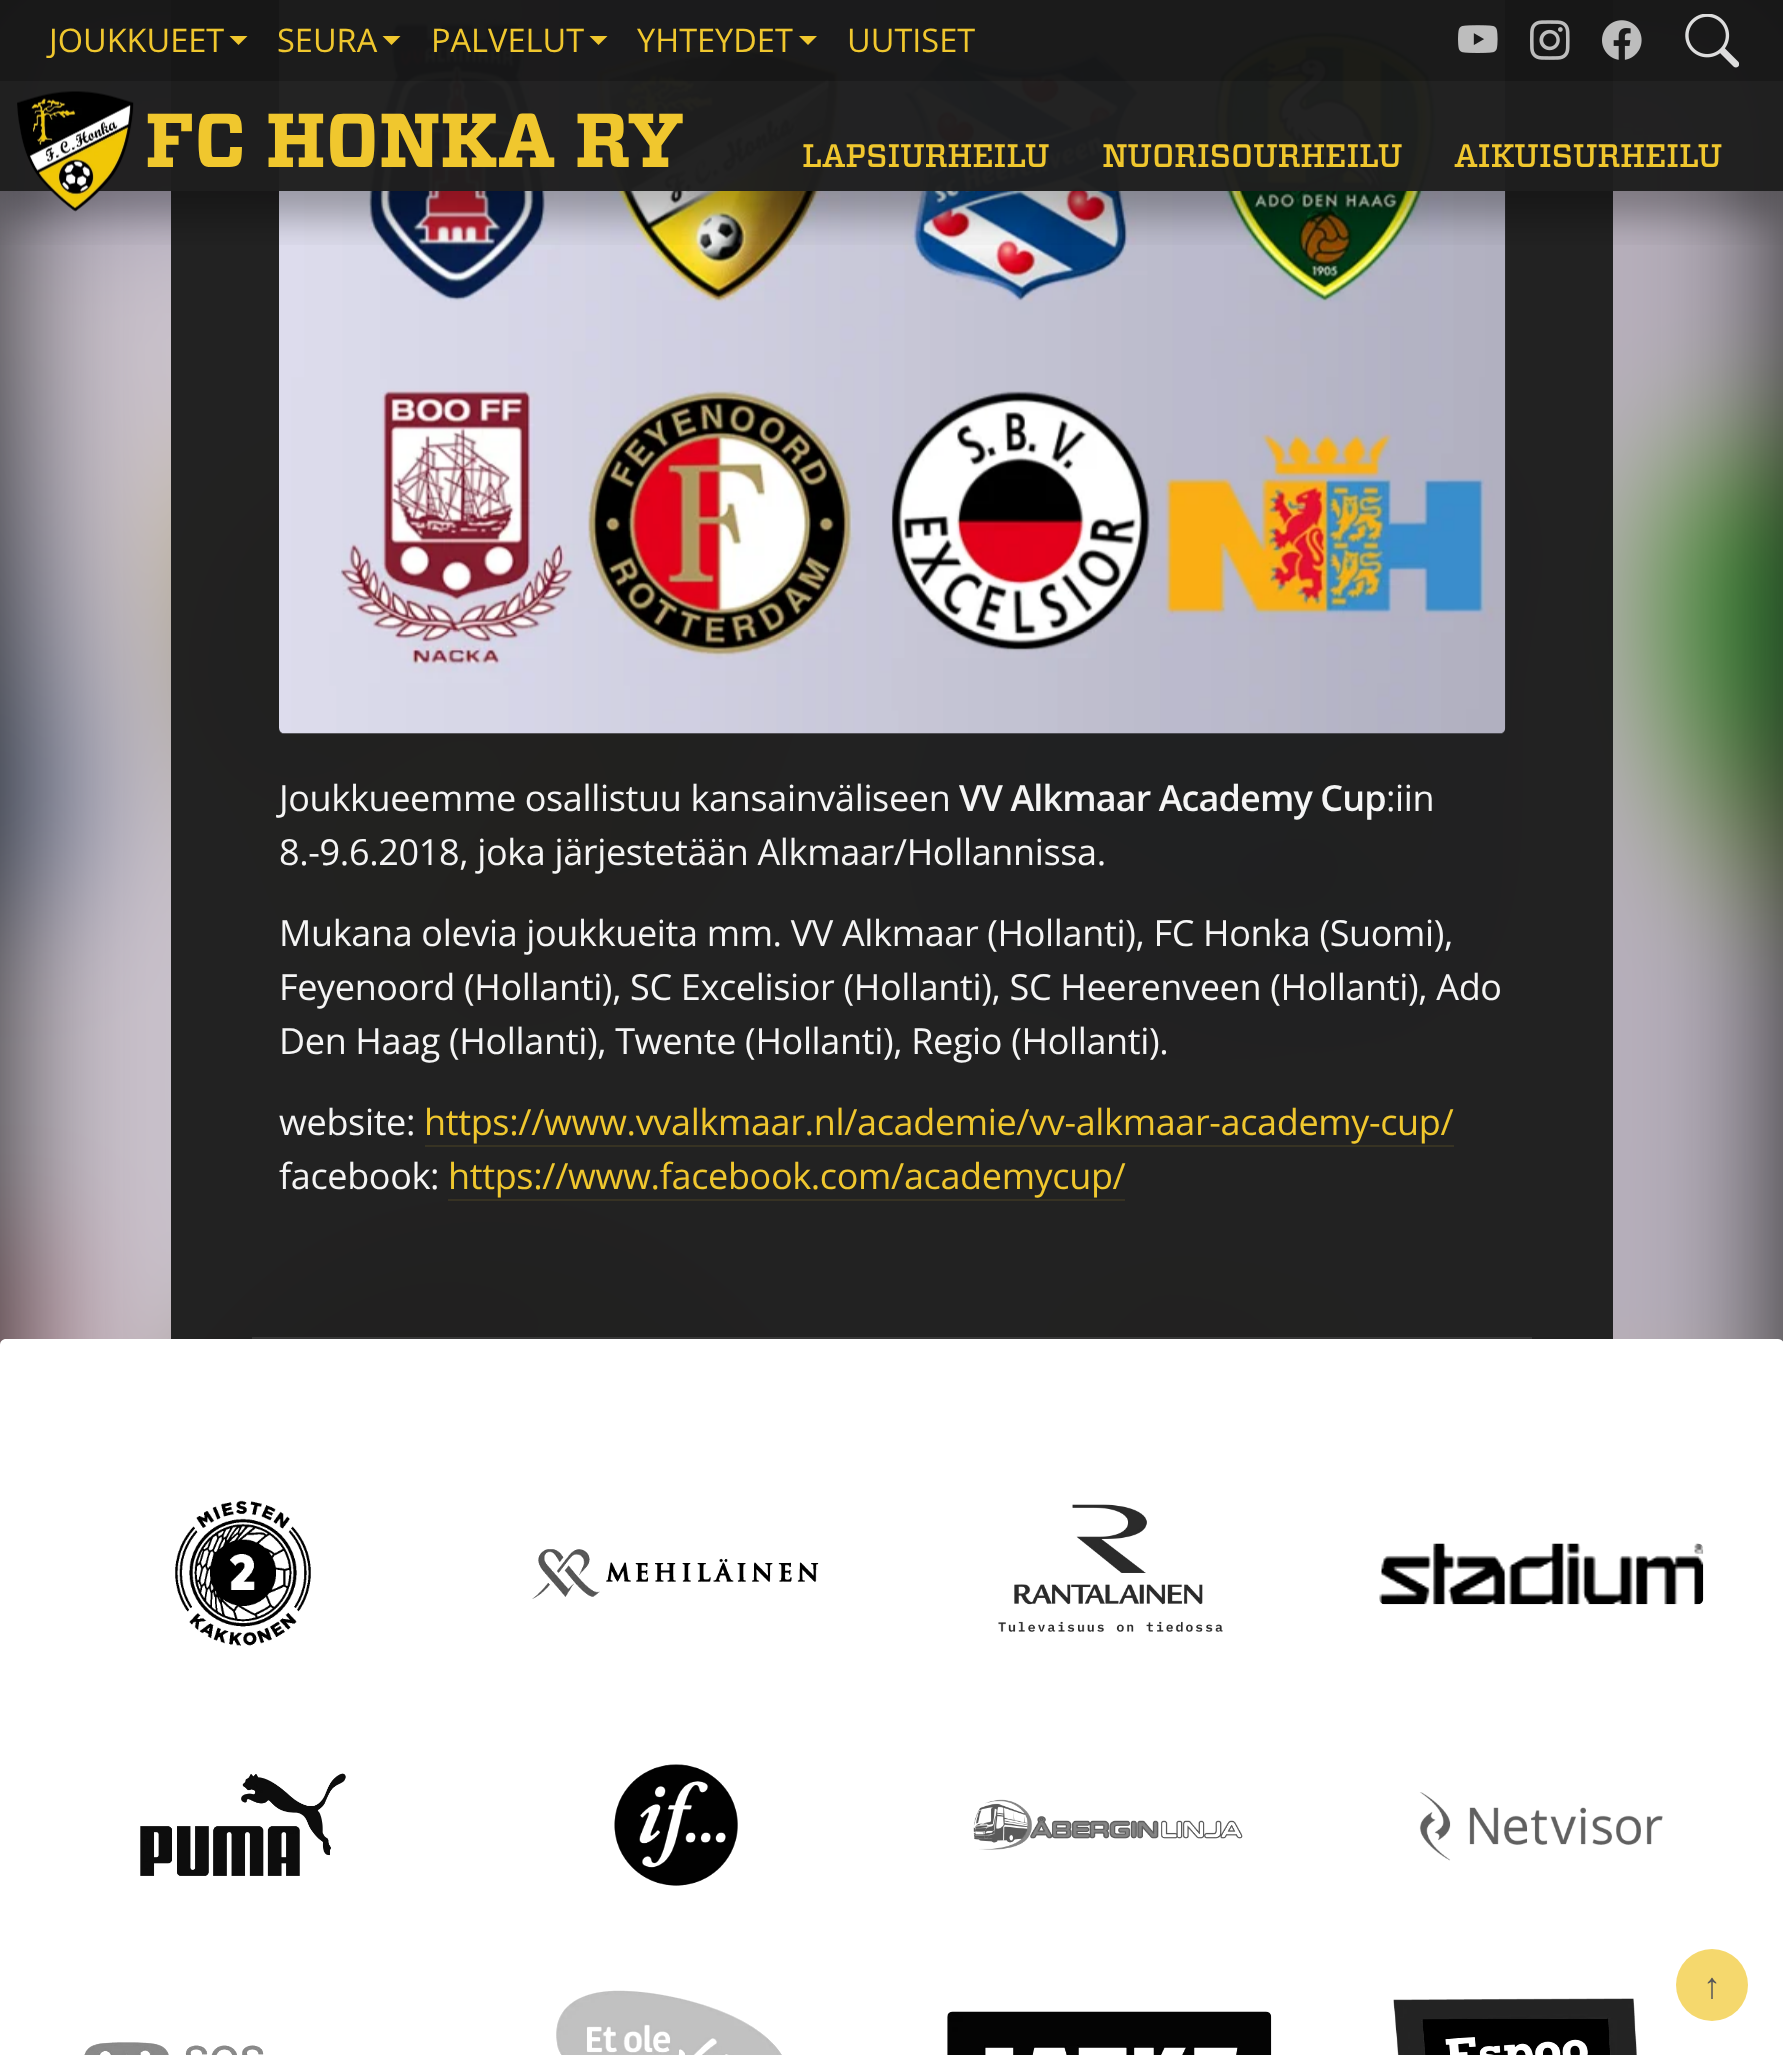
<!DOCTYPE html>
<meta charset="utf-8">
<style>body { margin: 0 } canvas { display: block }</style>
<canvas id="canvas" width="1783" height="2055"></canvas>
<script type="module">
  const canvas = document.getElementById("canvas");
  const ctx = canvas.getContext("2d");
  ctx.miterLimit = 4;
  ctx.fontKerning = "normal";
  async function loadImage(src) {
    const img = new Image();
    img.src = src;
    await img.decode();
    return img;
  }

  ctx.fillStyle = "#232323";
  ctx.fillRect(0, 0, 1783, 2055);
  ctx.drawImage(await loadImage("img1.png"), 0, 0, 1783, 1345);
  ctx.fillStyle = "rgba(31, 31, 31, 0.98)";
  ctx.fillRect(171, 0, 1442, 1339);
  ctx.drawImage(await loadImage("img7.png"), 279, 0, 1227, 734);
  ctx.save();
  ctx.beginPath();
  ctx.rect(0, 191, 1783, 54);
  ctx.clip();
  ctx.fillStyle = "rgba(0, 0, 0, 0.3)";
  ctx.filter = "blur(18px)";
  ctx.beginPath();
  ctx.rect(0, 27, 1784, 191);
  ctx.fill();
  ctx.filter = "none";
  ctx.restore();
  ctx.fillStyle = "rgba(23, 23, 23, 0.98)";
  ctx.fillRect(0, 0, 1783, 81);
  ctx.font = "32.5px Open Sans";
  ctx.fillStyle = "#f0c72e";
  ctx.fillText("JOUKKUEET", 49, 52);
  ctx.beginPath();
  ctx.moveTo(229.5, 36);
  ctx.lineTo(247.5, 36);
  ctx.lineTo(238.5, 45);
  ctx.closePath();
  ctx.fill();
  ctx.fillText("SEURA", 277, 52);
  ctx.beginPath();
  ctx.moveTo(382.5, 36);
  ctx.lineTo(400.5, 36);
  ctx.lineTo(391.5, 45);
  ctx.closePath();
  ctx.fill();
  ctx.fillText("PALVELUT", 431, 52);
  ctx.beginPath();
  ctx.moveTo(589.5, 36);
  ctx.lineTo(607.5, 36);
  ctx.lineTo(598.5, 45);
  ctx.closePath();
  ctx.fill();
  ctx.fillText("YHTEYDET", 637, 52);
  ctx.beginPath();
  ctx.moveTo(799, 36);
  ctx.lineTo(817, 36);
  ctx.lineTo(808, 45);
  ctx.closePath();
  ctx.fill();
  ctx.fillText("UUTISET", 847, 52);
  ctx.drawImage(await loadImage("img2.png"), 1458, 25, 40, 28);
  ctx.drawImage(await loadImage("img3.png"), 1530, 20, 40, 40);
  ctx.drawImage(await loadImage("img4.png"), 1602, 20, 40, 40);
  ctx.drawImage(await loadImage("img5.png"), 1685, 14, 54, 54);
  ctx.fillStyle = "rgba(31, 31, 31, 0.98)";
  ctx.fillRect(0, 81, 1783, 110);
  ctx.drawImage(await loadImage("img6.png"), 17, 91, 117, 121);
  ctx.letterSpacing = "-0.35px";
  ctx.font = "bold 76.25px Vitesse";
  ctx.fillStyle = "#f0c72e";
  ctx.fillText("FC HONKA RY", 145, 167);
  ctx.font = "500 32.5px Vitesse";
  ctx.fillText("LAPSIURHEILU", 802, 167);
  ctx.fillText("NUORISOURHEILU", 1102, 167);
  ctx.fillText("AIKUISURHEILU", 1454, 167);
  ctx.font = "36px Open Sans";
  ctx.fillStyle = "#f5f5f5";
  ctx.fillText("Joukkueemme osallistuu kansainväliseen", 279, 811);
  ctx.letterSpacing = "-0.9px";
  ctx.font = "600 36px Open Sans";
  ctx.fillText("VV Alkmaar Academy Cup", 959, 811);
  ctx.letterSpacing = "-0.35px";
  ctx.font = "36px Open Sans";
  ctx.fillText(":iin", 1386, 811);
  ctx.fillText("8.-9.6.2018, joka järjestetään Alkmaar/Hollannissa.", 279, 865);
  ctx.fillText("Mukana olevia joukkueita mm. VV Alkmaar (Hollanti), FC Honka (Suomi),", 279, 946);
  ctx.fillText("Feyenoord (Hollanti), SC Excelisior (Hollanti), SC Heerenveen (Hollanti), Ado", 279, 1000);
  ctx.fillText("Den Haag (Hollanti), Twente (Hollanti), Regio (Hollanti).", 279, 1054);
  ctx.fillText("website:", 279, 1135);
  ctx.fillStyle = "#f0c72e";
  ctx.fillText("https://www.vvalkmaar.nl/academie/vv-alkmaar-academy-cup/", 424, 1135);
  ctx.fillStyle = "#373323";
  ctx.fillRect(425, 1145, 1029, 2);
  ctx.fillStyle = "#f5f5f5";
  ctx.fillText("facebook:", 279, 1189);
  ctx.fillStyle = "#f0c72e";
  ctx.fillText("https://www.facebook.com/academycup/", 448, 1189);
  ctx.fillStyle = "#373223";
  ctx.fillRect(448, 1199, 677, 2);
  ctx.fillStyle = "#373737";
  ctx.fillRect(252, 1337, 1280, 2);
  ctx.fillStyle = "#ffffff";
  ctx.beginPath();
  ctx.moveTo(6, 1339);
  ctx.lineTo(1778, 1339);
  ctx.bezierCurveTo(1781.5, 1339, 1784, 1341.5, 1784, 1345);
  ctx.lineTo(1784, 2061);
  ctx.lineTo(0, 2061);
  ctx.lineTo(0, 1345);
  ctx.bezierCurveTo(0, 1341.5, 2.5, 1339, 6, 1339);
  ctx.closePath();
  ctx.fill();
  ctx.drawImage(await loadImage("img8.png"), 175, 1500, 136, 146);
  ctx.drawImage(await loadImage("img9.png"), 532, 1549, 287, 50);
  ctx.drawImage(await loadImage("img10.png"), 998, 1504, 225, 128);
  ctx.drawImage(await loadImage("img11.png"), 1379, 1543, 325, 62);
  ctx.drawImage(await loadImage("img12.png"), 140, 1773, 206, 103);
  ctx.drawImage(await loadImage("img13.png"), 614, 1764, 124, 122);
  ctx.drawImage(await loadImage("img14.png"), 973, 1799, 270, 51);
  ctx.drawImage(await loadImage("img15.png"), 1419, 1792, 244, 69);
  ctx.drawImage(await loadImage("img16.png"), 84, 2042, 180, 13);
  ctx.drawImage(await loadImage("img17.png"), 556, 1990, 226, 65);
  ctx.drawImage(await loadImage("img18.png"), 947, 2011, 325, 44);
  ctx.drawImage(await loadImage("img19.png"), 1393, 1998, 244, 57);
  ctx.fillStyle = "#f5d86d";
  ctx.beginPath();
  ctx.arc(1712, 1985, 36, 0, Math.PI * 2);
  ctx.fill();
  ctx.font = "36px Liberation Sans";
  ctx.fillStyle = "#585858";
  ctx.fillText("↑", 1703, 1998);
</script>
